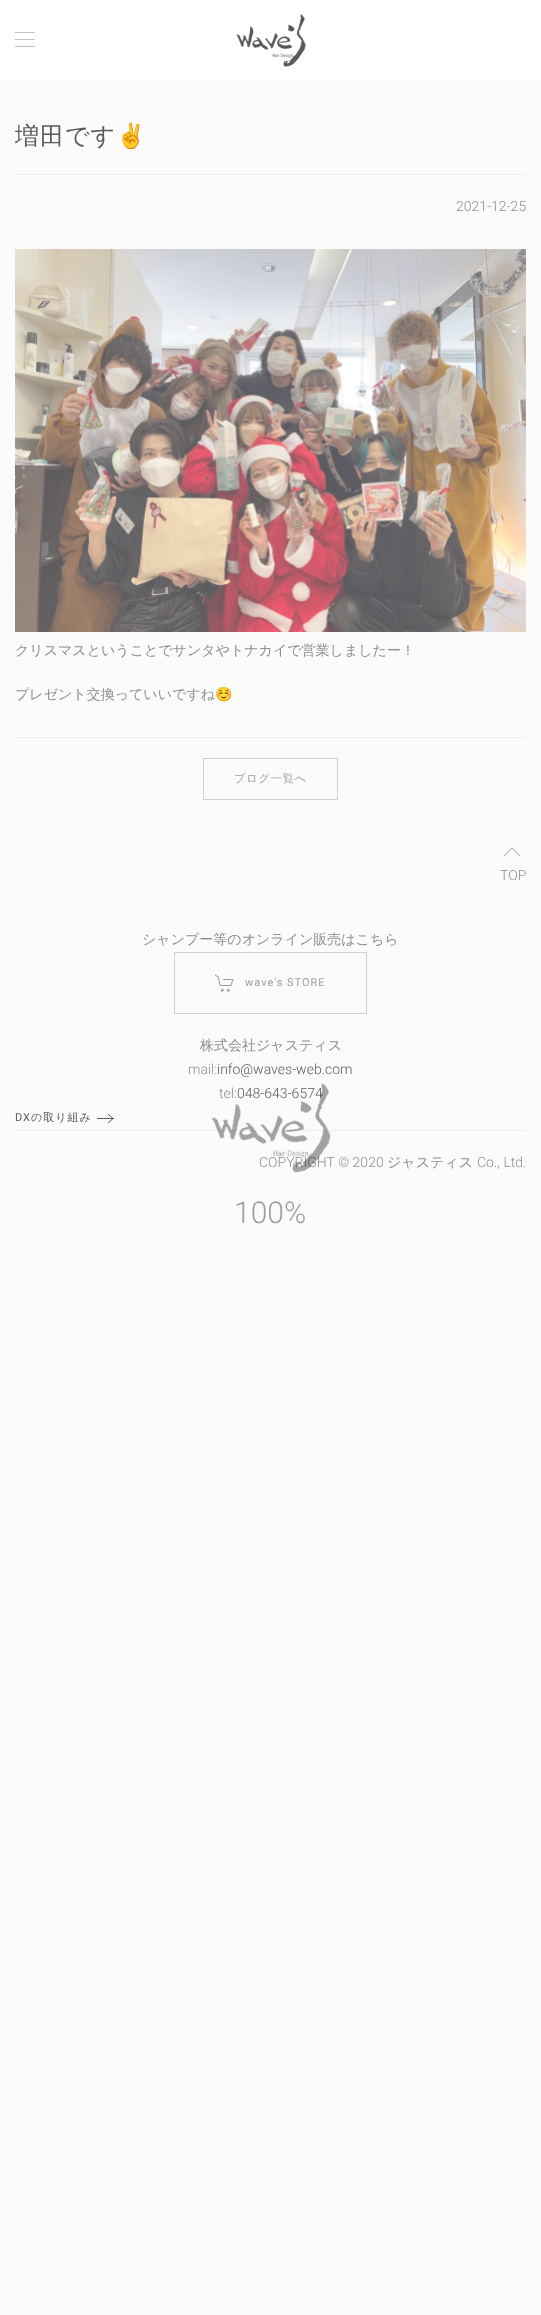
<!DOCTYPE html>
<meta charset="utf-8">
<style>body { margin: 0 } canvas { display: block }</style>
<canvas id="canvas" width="541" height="2315"></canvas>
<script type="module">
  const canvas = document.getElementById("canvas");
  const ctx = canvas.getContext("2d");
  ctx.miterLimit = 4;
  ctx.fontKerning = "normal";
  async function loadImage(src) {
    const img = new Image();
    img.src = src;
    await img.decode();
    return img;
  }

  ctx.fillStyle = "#fbfbfb";
  ctx.fillRect(0, 0, 541, 2315);
  ctx.fillStyle = "#ffffff";
  ctx.fillRect(0, 0, 541, 80);
  ctx.fillStyle = "#c3c3c3";
  ctx.fillRect(15, 32, 20, 1);
  ctx.fillRect(15, 39, 20, 1);
  ctx.fillRect(15, 46, 20, 1);
  ctx.drawImage(await loadImage("img1.png"), 236, 14, 70, 53);
  ctx.letterSpacing = "1px";
  ctx.font = "500 24px WenQuanYi Zen Hei";
  ctx.fillStyle = "#5a5a5a";
  ctx.fillText("増田です", 15, 144);
  ctx.font = "24px Noto Color Emoji";
  ctx.fillText("✌️", 116, 144);
  ctx.fillStyle = "#eeeeee";
  ctx.fillRect(15, 174, 511, 1);
  ctx.letterSpacing = "0px";
  ctx.font = "300 14px Roboto";
  ctx.fillStyle = "#8f8d8d";
  ctx.fillText("2021-12-25", 456, 211);
  ctx.drawImage(await loadImage("img2.png"), 15, 249, 511, 383);
  ctx.font = "500 14px WenQuanYi Zen Hei";
  ctx.fillText("クリスマスということでサンタやトナカイで営業しましたー！", 15, 655);
  ctx.fillText("プレゼント交換っていいですね", 15, 699);
  ctx.font = "14px Noto Color Emoji";
  ctx.fillText("☺️", 215, 699);
  ctx.fillStyle = "#eeeeee";
  ctx.fillRect(15, 737, 511, 1);
  ctx.strokeStyle = "#cfcfcf";
  ctx.strokeRect(203.5, 758.5, 134, 41);
  ctx.letterSpacing = "1px";
  ctx.font = "500 11px WenQuanYi Zen Hei";
  ctx.fillStyle = "#9e9e9e";
  ctx.fillText("ブログ一覧へ", 234, 782);
  ctx.beginPath();
  ctx.moveTo(504, 856);
  ctx.lineTo(512, 848);
  ctx.lineTo(520, 856);
  ctx.strokeStyle = "#c3c3c3";
  ctx.lineWidth = 1.2;
  ctx.stroke();
  ctx.letterSpacing = "0px";
  ctx.font = "300 14px Roboto";
  ctx.fillStyle = "#8f8d8d";
  ctx.fillText("TOP", 500, 880);
  ctx.font = "500 14px WenQuanYi Zen Hei";
  ctx.fillText("シャンプー等のオンライン販売はこちら", 142, 944);
  ctx.strokeStyle = "#cfcfcf";
  ctx.lineWidth = 1;
  ctx.strokeRect(174.5, 952.5, 192, 61);
  ctx.drawImage(await loadImage("img3.png"), 215, 974, 19, 18);
  ctx.letterSpacing = "1px";
  ctx.font = "11px Roboto";
  ctx.fillStyle = "#9e9e9e";
  ctx.fillText("wave's STORE", 245, 986);
  ctx.letterSpacing = "0px";
  ctx.font = "500 14px WenQuanYi Zen Hei";
  ctx.fillStyle = "#8f8d8d";
  ctx.fillText("株式会社ジャスティス", 200, 1050);
  ctx.font = "300 14px Roboto";
  ctx.fillText("mail:", 188, 1074);
  ctx.fillStyle = "#5a5a5a";
  ctx.fillText("info@waves-web.com", 217, 1074);
  ctx.fillStyle = "#8f8d8d";
  ctx.fillText("tel:", 219, 1098);
  ctx.fillStyle = "#5a5a5a";
  ctx.fillText("048-643-6574", 237, 1098);
  ctx.letterSpacing = "1px";
  ctx.font = "11px Roboto";
  ctx.fillText("DX", 15, 1121);
  ctx.font = "500 11px WenQuanYi Zen Hei";
  ctx.fillText("の取り組み", 31, 1121);
  ctx.beginPath();
  ctx.moveTo(108, 1114);
  ctx.lineTo(113, 1118.5);
  ctx.lineTo(108, 1123);
  ctx.strokeStyle = "#5a5a5a";
  ctx.stroke();
  ctx.fillRect(97, 1118, 17, 1);
  ctx.fillStyle = "#eeeeee";
  ctx.fillRect(15, 1130, 511, 1);
  ctx.letterSpacing = "0px";
  ctx.font = "300 14px Roboto";
  ctx.fillStyle = "#8f8d8d";
  ctx.fillText("COPYRIGHT © 2020", 259, 1167);
  ctx.font = "500 14px WenQuanYi Zen Hei";
  ctx.fillText("ジャスティス", 387, 1167);
  ctx.font = "300 14px Roboto";
  ctx.fillText("Co., Ltd.", 477, 1167);
  ctx.drawImage(await loadImage("img4.png"), 211, 1083, 120, 90);
  ctx.font = "300 30px Roboto";
  ctx.fillStyle = "#9e9e9e";
  ctx.fillText("100%", 234, 1223);
</script>
